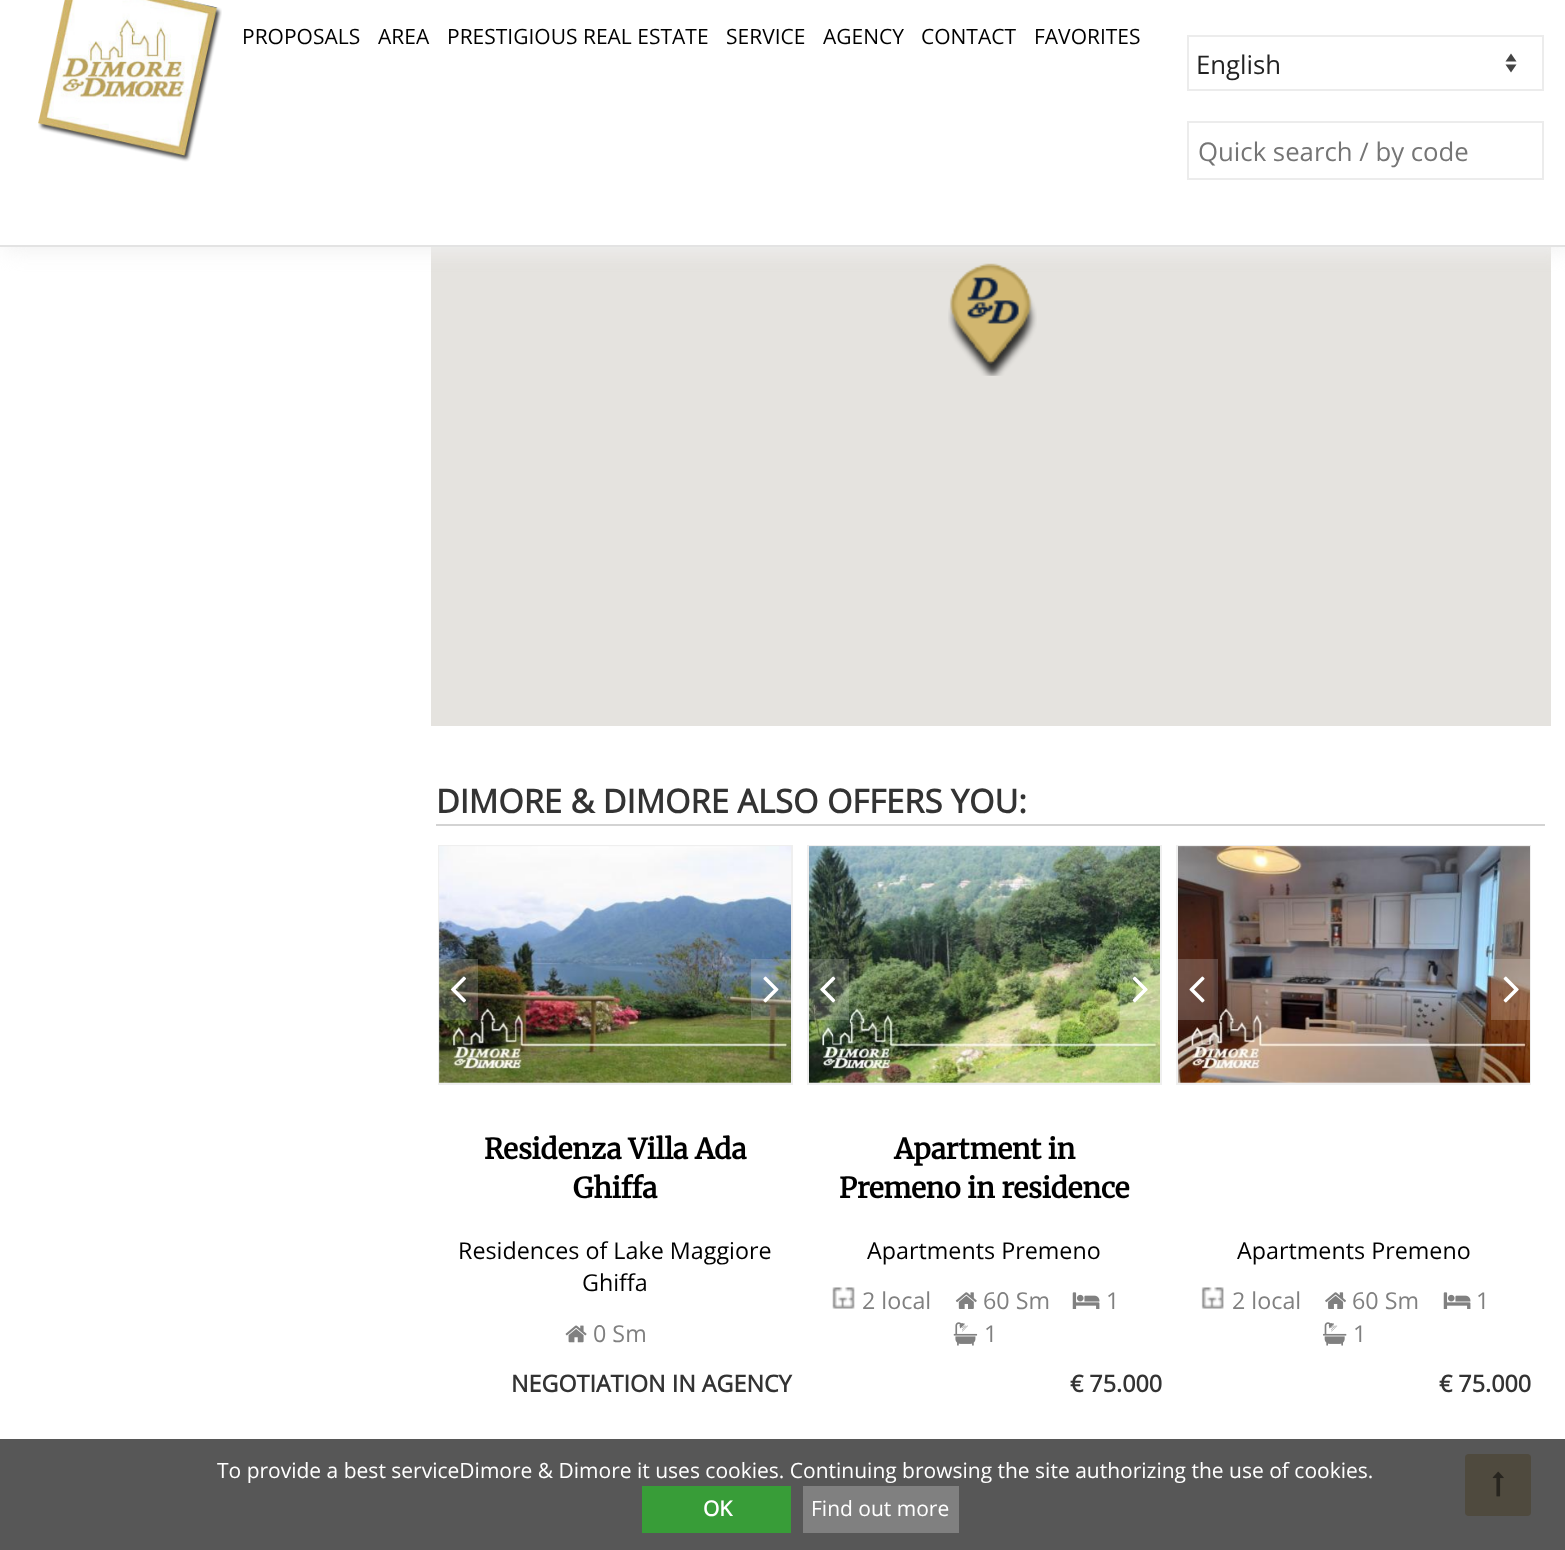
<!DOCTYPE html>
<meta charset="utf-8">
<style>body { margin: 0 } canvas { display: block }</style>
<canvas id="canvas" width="1565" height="1550"></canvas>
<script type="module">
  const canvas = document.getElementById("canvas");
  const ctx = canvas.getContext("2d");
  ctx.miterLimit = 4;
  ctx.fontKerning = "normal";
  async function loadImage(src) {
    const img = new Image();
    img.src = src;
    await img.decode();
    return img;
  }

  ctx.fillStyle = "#ffffff";
  ctx.fillRect(0, 0, 1565, 1550);
  ctx.fillStyle = "#575757";
  ctx.fillRect(0, 1439, 1565, 111);
  ctx.fillStyle = "#fcfcfc";
  ctx.fillRect(431, 0, 1120, 9);
  ctx.fillStyle = "#e5e3df";
  ctx.fillRect(431, 26, 1120, 700);
  ctx.drawImage(await loadImage("img2.png"), 948, 263, 89, 113);
  ctx.save();
  ctx.beginPath();
  ctx.rect(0, 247, 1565, 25);
  ctx.clip();
  ctx.fillStyle = "#f0f0f0";
  ctx.filter = "blur(10.5px)";
  ctx.beginPath();
  ctx.rect(4, 4, 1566, 246);
  ctx.fill();
  ctx.filter = "none";
  ctx.restore();
  ctx.fillStyle = "rgba(255, 255, 255, 0.98)";
  ctx.fillRect(431, 0, 1120, 245);
  ctx.fillStyle = "#e3e3e3";
  ctx.fillRect(0, 245, 1565, 2);
  ctx.drawImage(await loadImage("img1.png"), 38, 0, 184, 162);
  ctx.font = "21px Open Sans";
  ctx.fillStyle = "#000000";
  ctx.fillText("PROPOSALS", 242, 44);
  ctx.fillText("AREA", 378, 44);
  ctx.fillText("PRESTIGIOUS REAL ESTATE", 447, 44);
  ctx.fillText("SERVICE", 726, 44);
  ctx.fillText("AGENCY", 823, 44);
  ctx.fillText("CONTACT", 921, 44);
  ctx.fillText("FAVORITES", 1034, 44);
  ctx.fillStyle = "#444444";
  ctx.beginPath();
  ctx.moveTo(1505.5, 61.5);
  ctx.lineTo(1511, 53.5);
  ctx.lineTo(1516.5, 61.5);
  ctx.closePath();
  ctx.moveTo(1516.5, 64.5);
  ctx.lineTo(1511, 72.5);
  ctx.lineTo(1505.5, 64.5);
  ctx.closePath();
  ctx.fill();
  ctx.strokeStyle = "#ececec";
  ctx.lineWidth = 2;
  ctx.strokeRect(1188, 36, 355, 54);
  ctx.font = "25.75px Open Sans";
  ctx.fillStyle = "#222222";
  ctx.fillText("English", 1196, 74);
  ctx.strokeRect(1188, 122, 355, 57);
  ctx.fillStyle = "#757575";
  ctx.fillText("Quick search / by code", 1198, 161);
  ctx.fillStyle = "#d3d3d3";
  ctx.fillRect(436, 824, 1109, 2);
  ctx.font = "bold 32.7px Open Sans";
  ctx.fillStyle = "#333333";
  ctx.fillText("DIMORE & DIMORE ALSO OFFERS YOU:", 436, 813);
  ctx.strokeStyle = "#efefef";
  ctx.strokeRect(439, 846, 353, 238);
  ctx.drawImage(await loadImage("img3.png"), 439, 846, 352, 237);
  ctx.fillStyle = "rgba(255, 255, 255, 0.18)";
  ctx.fillRect(438, 959, 40, 61);
  ctx.drawImage(await loadImage("img4.png"), 451, 976, 15, 27);
  ctx.fillRect(751, 959, 42, 61);
  ctx.drawImage(await loadImage("img5.png"), 763, 976, 16, 27);
  ctx.font = "bold 28px Merriweather";
  ctx.fillStyle = "#000000";
  ctx.fillText("Residenza Villa Ada", 484, 1159);
  ctx.fillText("Ghiffa", 573, 1198);
  ctx.font = "23.3px Open Sans";
  ctx.fillText("Residences of Lake Maggiore", 458, 1259);
  ctx.fillText("Ghiffa", 582, 1291);
  ctx.drawImage(await loadImage("img6.png"), 565, 1325, 22, 18);
  ctx.fillStyle = "#808080";
  ctx.fillText("0 Sm", 593, 1342);
  ctx.font = "bold 23.3px Open Sans";
  ctx.fillStyle = "#333333";
  ctx.fillText("NEGOTIATION IN AGENCY", 511, 1392);
  ctx.strokeRect(808, 846, 353, 238);
  ctx.drawImage(await loadImage("img7.png"), 809, 846, 351, 237);
  ctx.fillStyle = "rgba(255, 255, 255, 0.18)";
  ctx.fillRect(807, 959, 42, 61);
  ctx.drawImage(await loadImage("img8.png"), 820, 976, 16, 27);
  ctx.fillRect(1120, 959, 42, 61);
  ctx.drawImage(await loadImage("img9.png"), 1132, 976, 16, 27);
  ctx.font = "bold 28px Merriweather";
  ctx.fillStyle = "#000000";
  ctx.fillText("Apartment in", 894, 1159);
  ctx.fillText("Premeno in residence", 839, 1198);
  ctx.font = "23.3px Open Sans";
  ctx.fillText("Apartments Premeno", 867, 1259);
  ctx.drawImage(await loadImage("img10.png"), 832, 1287, 23, 22);
  ctx.fillStyle = "#808080";
  ctx.fillText("2 local", 862, 1309);
  ctx.drawImage(await loadImage("img11.png"), 955, 1292, 22, 17);
  ctx.fillText("60 Sm", 983, 1309);
  ctx.drawImage(await loadImage("img12.png"), 1072, 1292, 28, 17);
  ctx.fillText("1", 1106, 1309);
  ctx.drawImage(await loadImage("img13.png"), 953, 1322, 25, 24);
  ctx.fillText("1", 984, 1342);
  ctx.font = "bold 23.3px Open Sans";
  ctx.fillStyle = "#333333";
  ctx.fillText("€ 75.000", 1070, 1392);
  ctx.strokeRect(1177, 846, 353, 238);
  ctx.drawImage(await loadImage("img14.png"), 1178, 846, 352, 237);
  ctx.fillStyle = "rgba(255, 255, 255, 0.18)";
  ctx.fillRect(1176, 959, 42, 61);
  ctx.drawImage(await loadImage("img15.png"), 1189, 976, 16, 27);
  ctx.fillRect(1491, 959, 40, 61);
  ctx.drawImage(await loadImage("img16.png"), 1503, 976, 16, 27);
  ctx.font = "23.3px Open Sans";
  ctx.fillStyle = "#000000";
  ctx.fillText("Apartments Premeno", 1237, 1259);
  ctx.drawImage(await loadImage("img17.png"), 1201, 1287, 23, 22);
  ctx.fillStyle = "#808080";
  ctx.fillText("2 local", 1232, 1309);
  ctx.drawImage(await loadImage("img18.png"), 1325, 1292, 21, 17);
  ctx.fillText("60 Sm", 1352, 1309);
  ctx.drawImage(await loadImage("img12.png"), 1443, 1292, 28, 17);
  ctx.fillText("1", 1476, 1309);
  ctx.drawImage(await loadImage("img19.png"), 1323, 1322, 24, 24);
  ctx.fillText("1", 1353, 1342);
  ctx.font = "bold 23.3px Open Sans";
  ctx.fillStyle = "#333333";
  ctx.fillText("€ 75.000", 1439, 1392);
  ctx.font = "21px Open Sans";
  ctx.fillStyle = "#ffffff";
  ctx.fillText("To provide a best serviceDimore & Dimore it uses cookies. Continuing browsing the site authorizing the use of cookies.", 217, 1478);
  ctx.fillStyle = "#389d38";
  ctx.fillRect(642, 1486, 149, 47);
  ctx.font = "bold 21px Open Sans";
  ctx.fillStyle = "#ffffff";
  ctx.fillText("OK", 703, 1516);
  ctx.fillStyle = "#808080";
  ctx.fillRect(803, 1486, 156, 47);
  ctx.font = "21px Open Sans";
  ctx.fillStyle = "#ffffff";
  ctx.fillText("Find out more", 811, 1516);
  ctx.fillStyle = "#4f4a3e";
  ctx.beginPath();
  ctx.roundRect(1465, 1454, 66, 62, 4);
  ctx.fill();
  ctx.drawImage(await loadImage("img20.png"), 1492, 1471, 12, 26);
</script>
